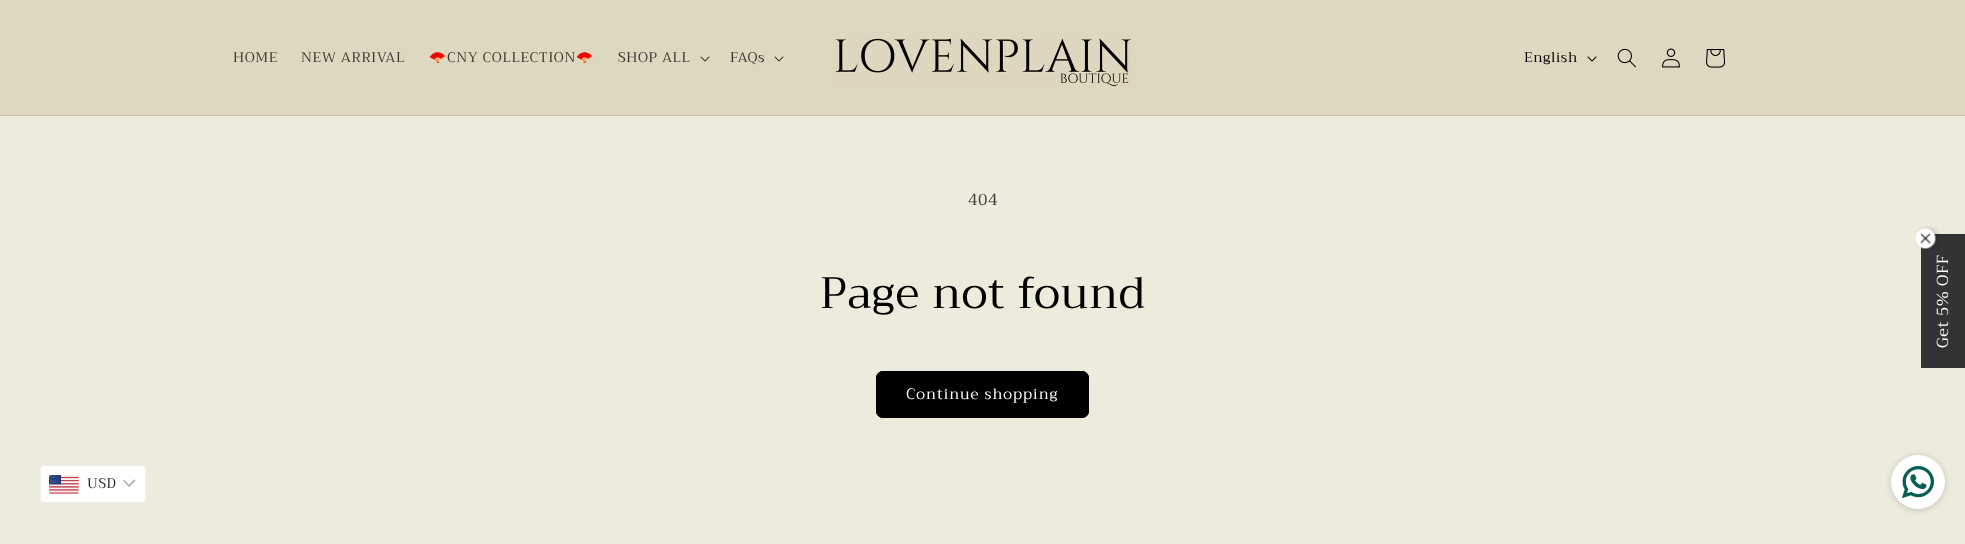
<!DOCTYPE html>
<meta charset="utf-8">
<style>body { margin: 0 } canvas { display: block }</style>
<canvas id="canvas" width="1965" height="544"></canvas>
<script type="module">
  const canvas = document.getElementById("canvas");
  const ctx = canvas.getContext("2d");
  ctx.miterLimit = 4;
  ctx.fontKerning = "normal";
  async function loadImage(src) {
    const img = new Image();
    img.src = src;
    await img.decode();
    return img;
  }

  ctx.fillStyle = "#edebdc";
  ctx.fillRect(0, 0, 1965, 544);
  ctx.fillStyle = "#ded8c0";
  ctx.fillRect(0, 0, 1965, 115);
  ctx.fillStyle = "#ccc7b1";
  ctx.fillRect(0, 115, 1965, 1);
  ctx.letterSpacing = "0.6px";
  ctx.font = "14px Trirong";
  ctx.fillStyle = "#383630";
  ctx.fillText("HOME", 233, 62);
  ctx.fillText("NEW ARRIVAL", 301, 62);
  ctx.font = "14px Noto Color Emoji";
  ctx.fillText("🪭", 429, 62);
  ctx.font = "14px Trirong";
  ctx.fillText("CNY COLLECTION", 447, 62);
  ctx.font = "14px Noto Color Emoji";
  ctx.fillText("🪭", 576, 62);
  ctx.font = "14px Trirong";
  ctx.fillText("SHOP ALL", 618, 62);
  ctx.drawImage(await loadImage("img1.png"), 700, 56, 10, 6);
  ctx.fillText("FAQs", 730, 62);
  ctx.drawImage(await loadImage("img1.png"), 774, 56, 10, 6);
  ctx.drawImage(await loadImage("img2.png"), 833, 38, 298, 50);
  ctx.fillStyle = "#000000";
  ctx.fillText("English", 1524, 62);
  ctx.drawImage(await loadImage("img3.png"), 1587, 56, 10, 6);
  ctx.drawImage(await loadImage("img4.png"), 1617, 48, 19, 20);
  ctx.drawImage(await loadImage("img5.png"), 1662, 48, 18, 20);
  ctx.drawImage(await loadImage("img6.png"), 1706, 49, 20, 19);
  ctx.font = "16px Trirong";
  ctx.fillStyle = "#3b3b37";
  ctx.fillText("404", 968, 205);
  ctx.letterSpacing = "0.7px";
  ctx.font = "44px Trirong";
  ctx.fillStyle = "#000000";
  ctx.fillText("Page not found", 820, 308);
  ctx.beginPath();
  ctx.roundRect(876, 371, 213, 47, 7);
  ctx.fill();
  ctx.beginPath();
  ctx.roundRect(876.5, 371.5, 212, 46, 6.5);
  ctx.strokeStyle = "#000000";
  ctx.stroke();
  ctx.letterSpacing = "1px";
  ctx.font = "15px Trirong";
  ctx.fillStyle = "#ffffff";
  ctx.fillText("Continue shopping", 906, 399);
  ctx.fillStyle = "#333333";
  ctx.fillRect(1921, 234, 44, 134);
  ctx.drawImage(await loadImage("img7.png"), 1915, 226, 25, 24);
  ctx.letterSpacing = "0.6px";
  ctx.font = "16px Trirong";
  ctx.fillStyle = "#ffffff";
  ctx.save();
  ctx.translate(1948, 348);
  ctx.rotate(-90 * Math.PI / 180);
  ctx.fillText("Get 5% OFF", 0, 0);
  ctx.restore();
  ctx.beginPath();
  ctx.roundRect(40, 465, 106, 38, 5);
  ctx.fill();
  ctx.beginPath();
  ctx.roundRect(40.5, 465.5, 105, 37, 4.5);
  ctx.strokeStyle = "rgba(204, 204, 204, 0.36)";
  ctx.stroke();
  ctx.drawImage(await loadImage("img8.png"), 49, 475, 30, 19);
  ctx.font = "14px Trirong";
  ctx.fillStyle = "#1e1e1e";
  ctx.fillText("USD", 87, 488);
  ctx.beginPath();
  ctx.moveTo(124, 480.5);
  ctx.lineTo(129, 486);
  ctx.lineTo(134.5, 480.5);
  ctx.strokeStyle = "#b7b7b7";
  ctx.lineWidth = 1.8;
  ctx.lineCap = "round";
  ctx.lineJoin = "round";
  ctx.stroke();
  ctx.fillStyle = "rgba(27, 27, 27, 0.2)";
  ctx.filter = "blur(3px)";
  ctx.beginPath();
  ctx.roundRect(1891, 456, 54, 54, 27);
  ctx.fill();
  ctx.filter = "none";
  ctx.fillStyle = "#ffffff";
  ctx.beginPath();
  ctx.arc(1918, 482, 26.5, 0, Math.PI * 2);
  ctx.fill();
  ctx.strokeStyle = "#ffffff";
  ctx.lineWidth = 1;
  ctx.stroke();
  ctx.drawImage(await loadImage("img9.png"), 1902, 466, 32, 32);
</script>
